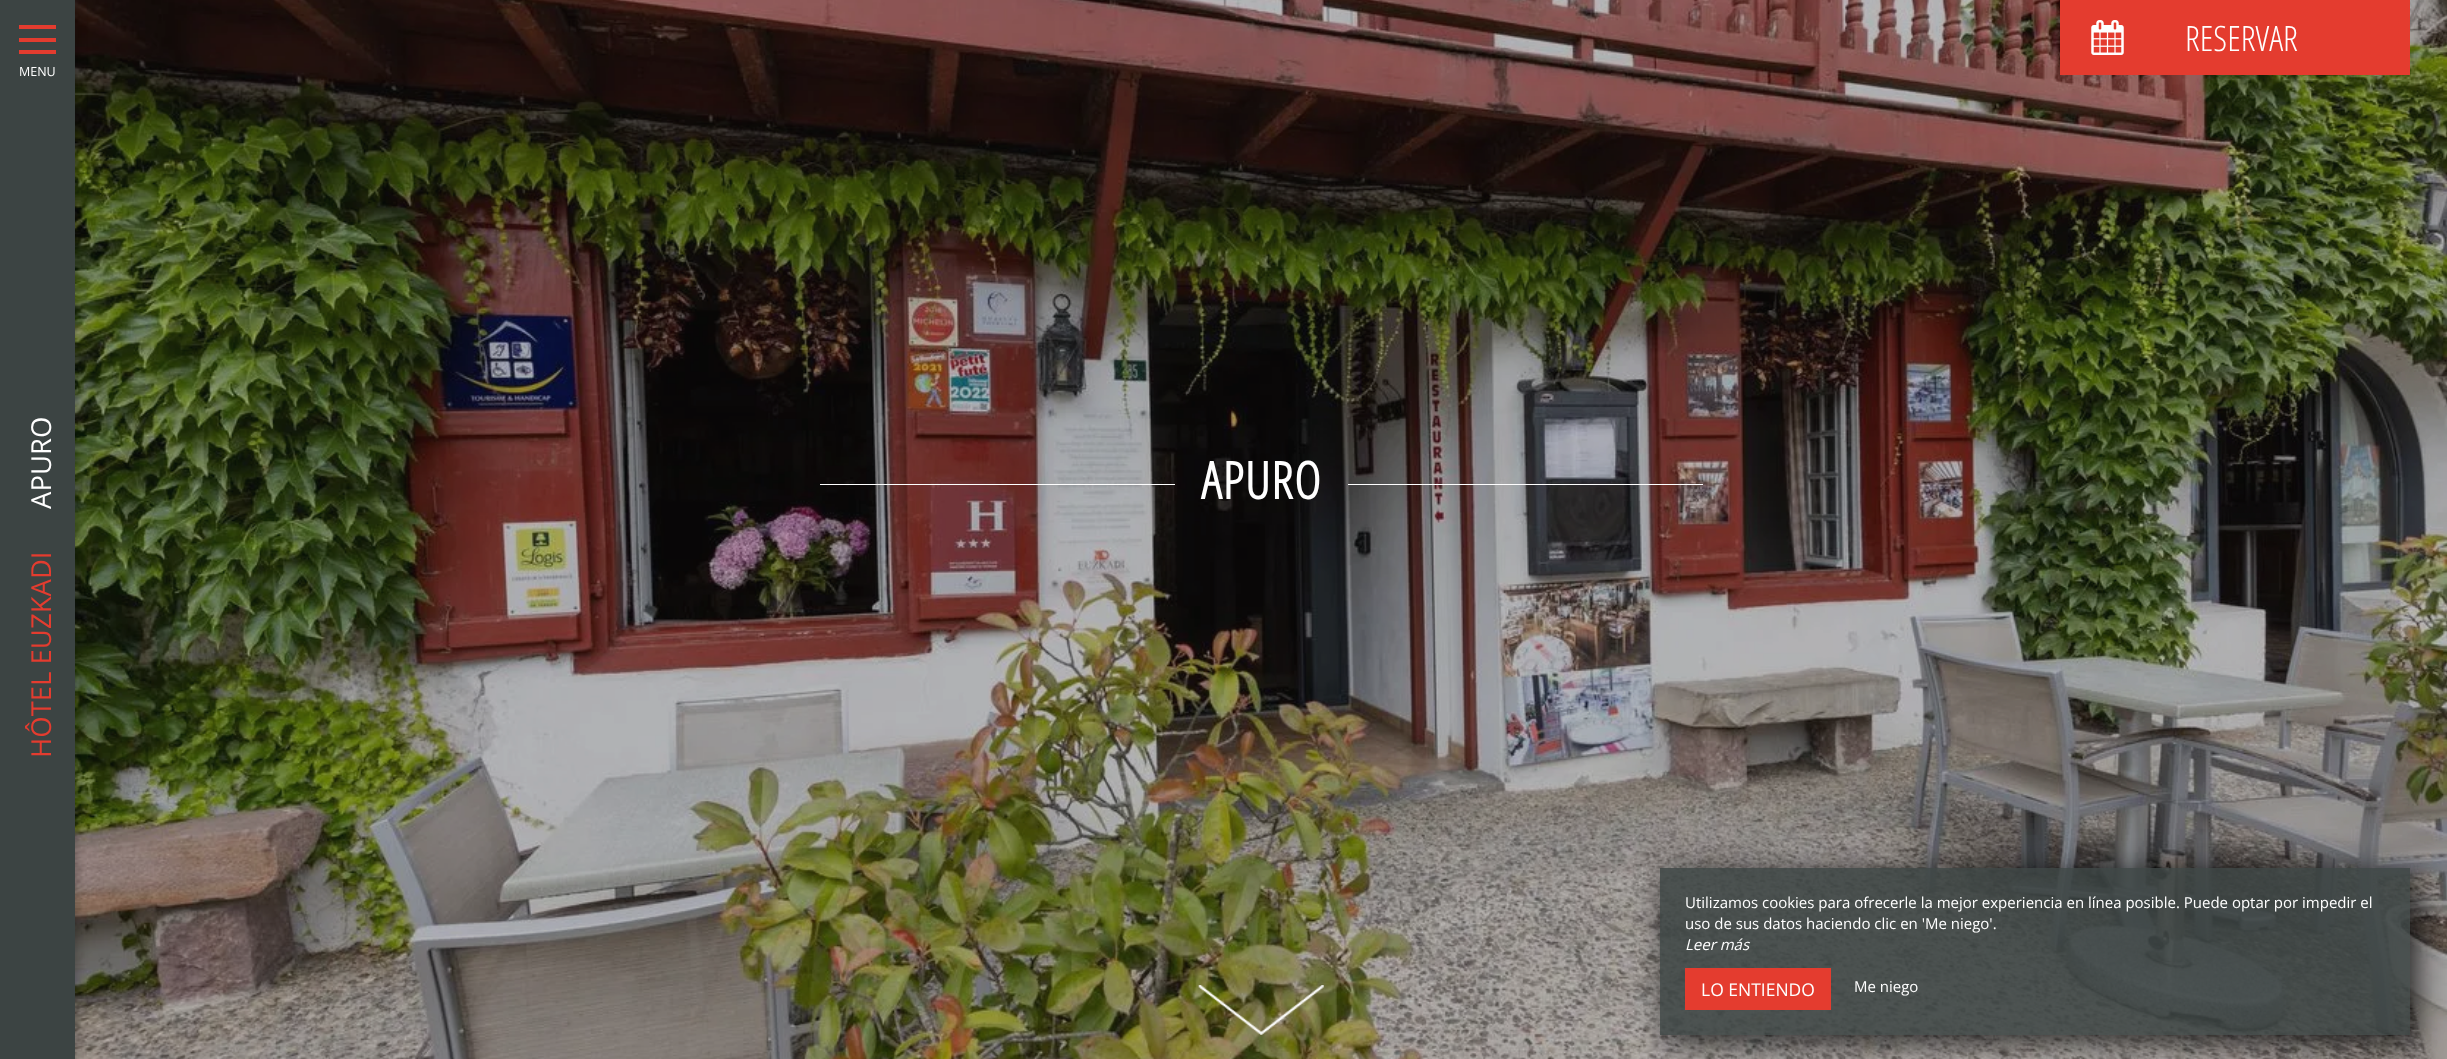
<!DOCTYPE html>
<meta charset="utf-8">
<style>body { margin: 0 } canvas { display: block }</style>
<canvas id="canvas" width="2447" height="1059"></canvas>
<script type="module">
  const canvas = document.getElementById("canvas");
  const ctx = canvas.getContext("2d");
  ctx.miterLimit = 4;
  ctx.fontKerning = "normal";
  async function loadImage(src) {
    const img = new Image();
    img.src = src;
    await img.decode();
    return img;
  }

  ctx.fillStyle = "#ffffff";
  ctx.fillRect(0, 0, 2447, 1059);
  ctx.drawImage(await loadImage("img2.png"), 75, 0, 2372, 1059);
  ctx.fillStyle = "rgba(0, 0, 0, 0.3)";
  ctx.filter = "blur(6px)";
  ctx.beginPath();
  ctx.rect(0, 0, 75, 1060);
  ctx.fill();
  ctx.filter = "none";
  ctx.fillStyle = "#3c4443";
  ctx.fillRect(0, 0, 75, 1059);
  ctx.fillStyle = "#e43c2f";
  ctx.fillRect(19, 25, 37, 4);
  ctx.fillRect(19, 38, 37, 4);
  ctx.fillRect(19, 50, 37, 4);
  ctx.font = "12.5px Open Sans";
  ctx.fillStyle = "#ffffff";
  ctx.fillText("MENU", 19, 76);
  ctx.font = "27.5px Open Sans";
  ctx.save();
  ctx.translate(51, 509);
  ctx.rotate(-90 * Math.PI / 180);
  ctx.fillText("APURO", 0, 0);
  ctx.restore();
  ctx.fillStyle = "#e43c2f";
  ctx.save();
  ctx.translate(51, 758);
  ctx.rotate(-90 * Math.PI / 180);
  ctx.fillText("HÔTEL EUZKADI", 0, 0);
  ctx.restore();
  ctx.fillRect(2060, 0, 350, 75);
  ctx.drawImage(await loadImage("img1.png"), 2091, 20, 33, 35);
  ctx.font = "300 35px Open Sans Condensed";
  ctx.fillStyle = "#ffffff";
  ctx.fillText("RESERVAR", 2185, 51);
  ctx.fillRect(820, 484, 355, 1);
  ctx.letterSpacing = "1.25px";
  ctx.font = "bold 51px Open Sans Condensed";
  ctx.fillText("APURO", 1201, 499);
  ctx.fillRect(1348, 484, 355, 1);
  ctx.drawImage(await loadImage("img3.png"), 1198, 985, 126, 50);
  ctx.save();
  ctx.beginPath();
  ctx.moveTo(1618, 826);
  ctx.lineTo(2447, 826);
  ctx.lineTo(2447, 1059);
  ctx.lineTo(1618, 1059);
  ctx.closePath();
  ctx.moveTo(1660, 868);
  ctx.lineTo(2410, 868);
  ctx.lineTo(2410, 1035);
  ctx.lineTo(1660, 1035);
  ctx.closePath();
  ctx.clip("evenodd");
  ctx.fillStyle = "rgba(0, 0, 0, 0.8)";
  ctx.filter = "blur(15.5px)";
  ctx.beginPath();
  ctx.rect(1666, 874, 750, 167);
  ctx.fill();
  ctx.filter = "none";
  ctx.restore();
  ctx.fillStyle = "rgba(60, 68, 67, 0.85)";
  ctx.fillRect(1660, 868, 750, 167);
  ctx.letterSpacing = "0px";
  ctx.font = "15px Open Sans";
  ctx.fillStyle = "#ffffff";
  ctx.fillText("Utilizamos cookies para ofrecerle la mejor experiencia en línea posible. Puede optar por impedir el", 1685, 908);
  ctx.fillText("uso de sus datos haciendo clic en 'Me niego'.", 1685, 929);
  ctx.font = "italic 15px Open Sans";
  ctx.fillText("Leer más", 1685, 950);
  ctx.fillStyle = "#e43c2f";
  ctx.fillRect(1685, 968, 146, 42);
  ctx.font = "17.5px Open Sans";
  ctx.fillStyle = "#ffffff";
  ctx.fillText("LO ENTIENDO", 1701, 996);
  ctx.font = "15px Open Sans";
  ctx.fillText("Me niego", 1854, 992);
</script>
